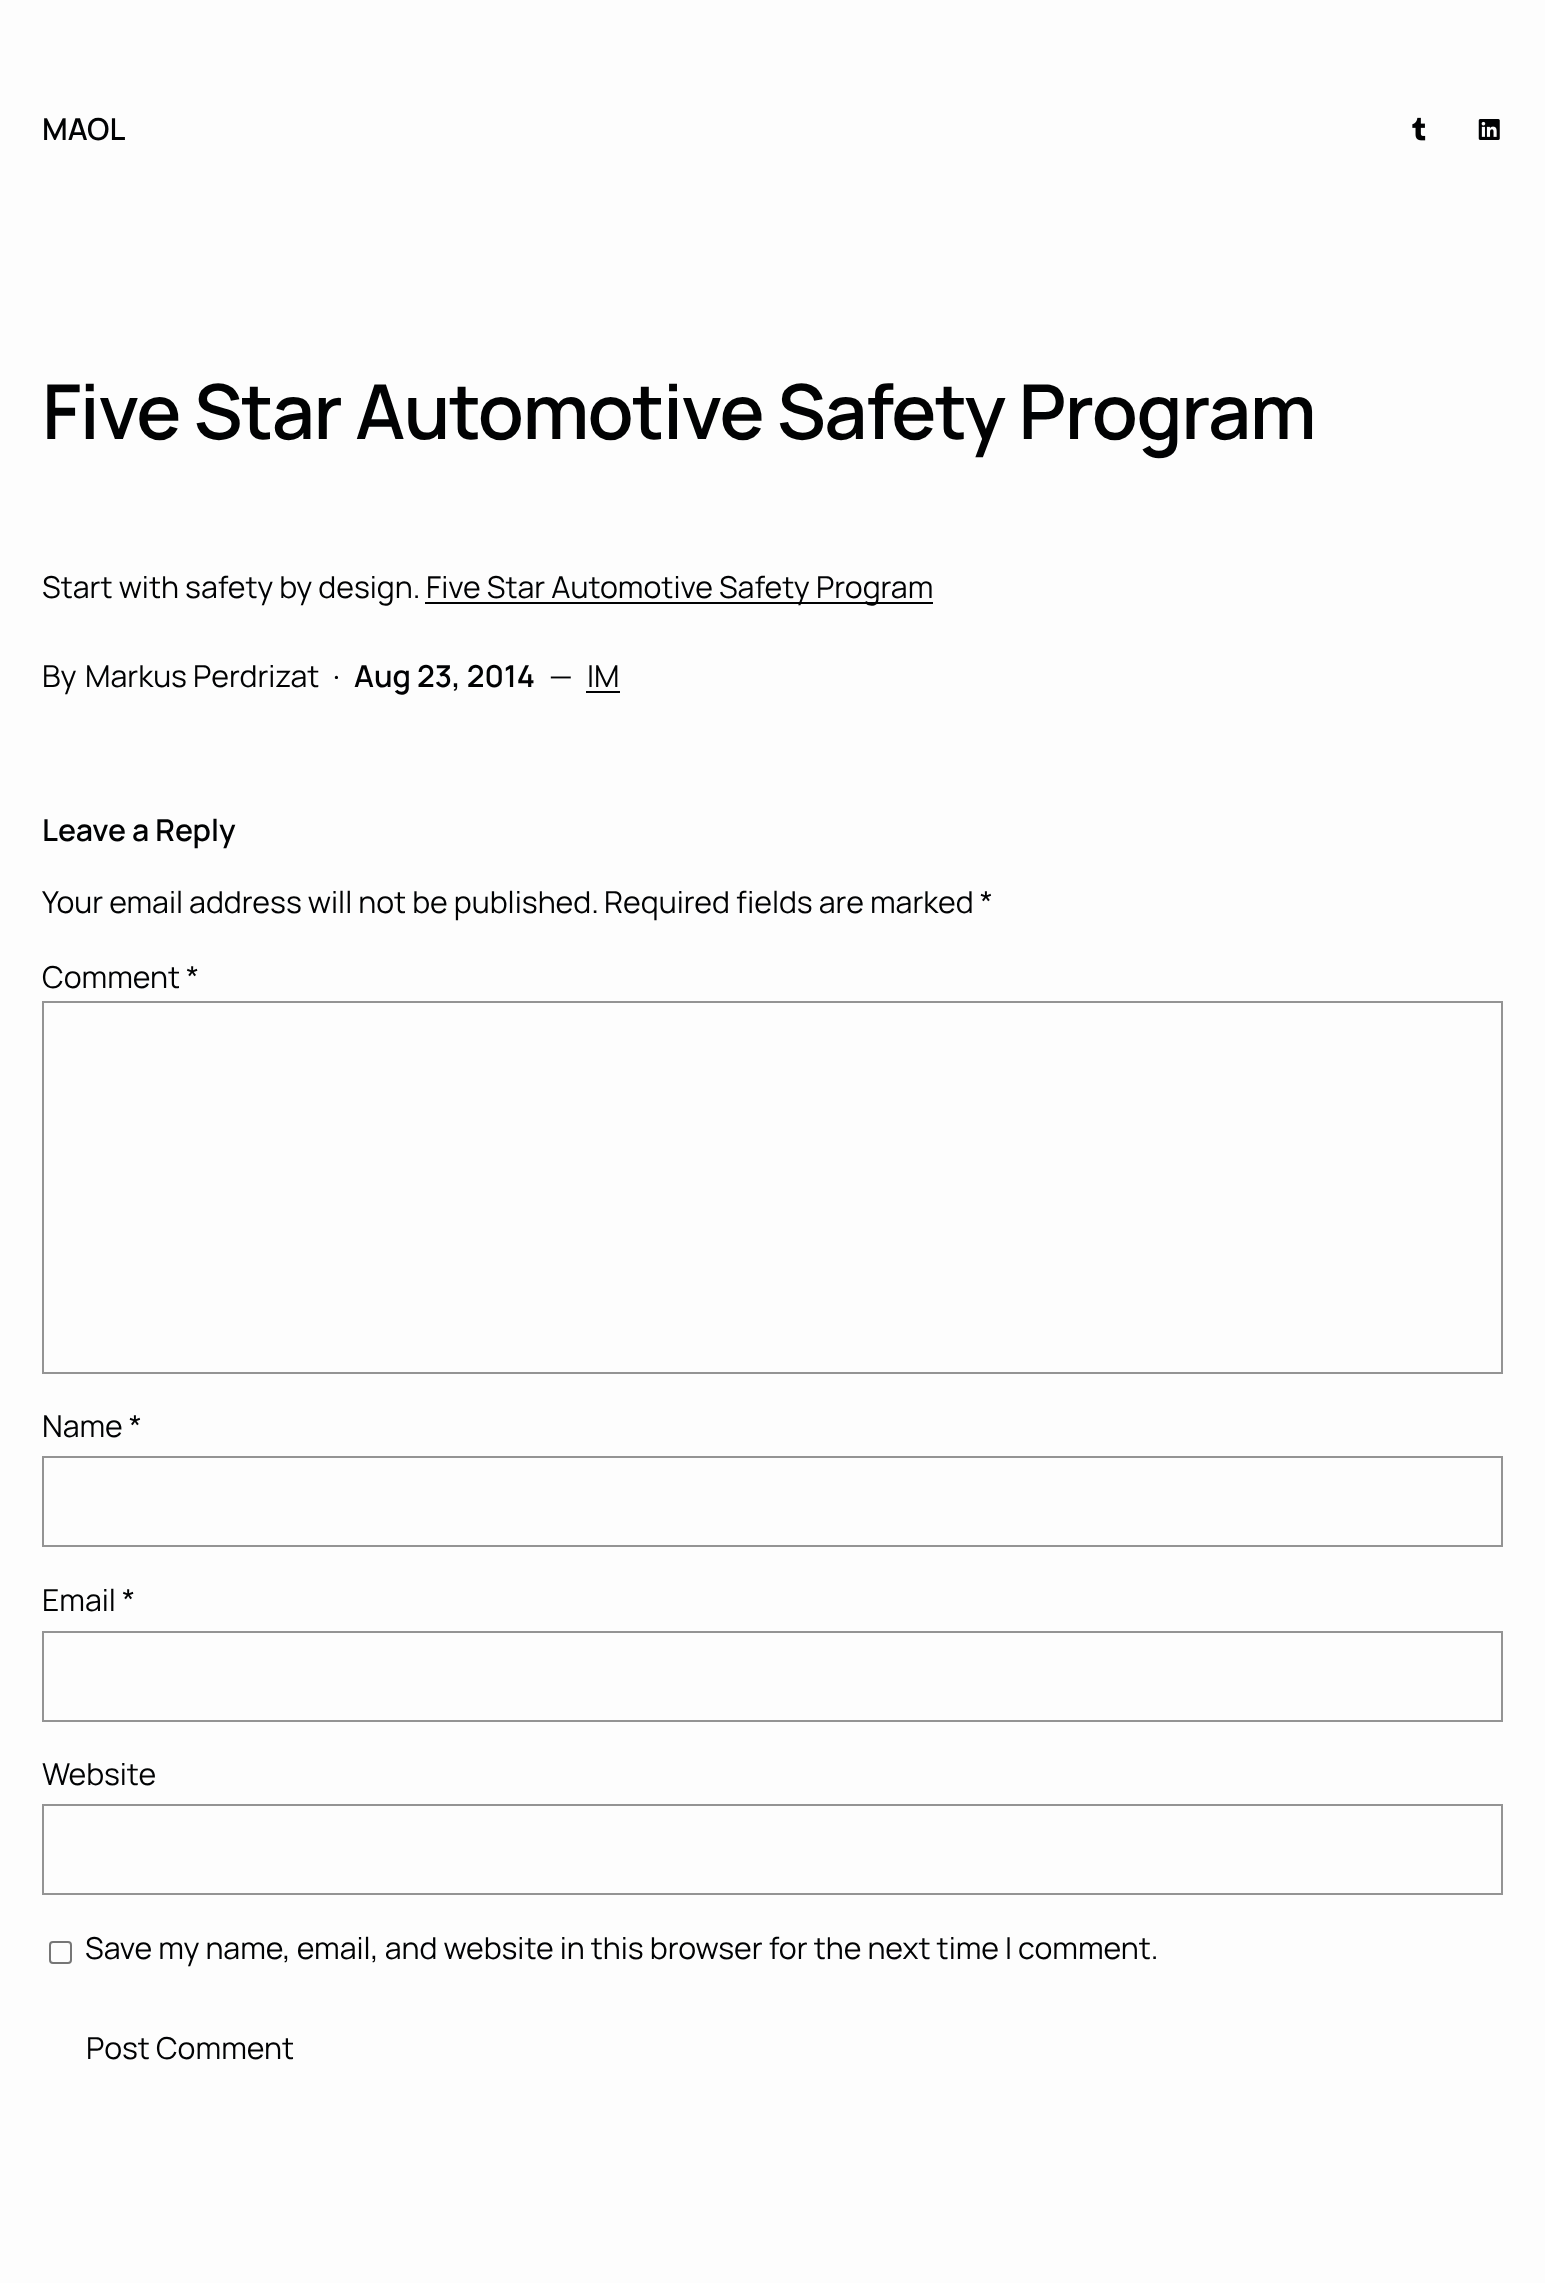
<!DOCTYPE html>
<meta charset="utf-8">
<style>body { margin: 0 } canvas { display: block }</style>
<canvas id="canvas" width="1545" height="2283"></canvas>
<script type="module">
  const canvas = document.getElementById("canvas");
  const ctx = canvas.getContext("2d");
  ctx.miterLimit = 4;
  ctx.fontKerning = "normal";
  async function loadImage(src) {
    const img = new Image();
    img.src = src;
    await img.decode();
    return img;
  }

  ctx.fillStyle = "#fdfdfd";
  ctx.fillRect(0, 0, 1545, 2283);
  ctx.font = "600 30.25px Manrope";
  ctx.fillStyle = "#010203";
  ctx.fillText("MAOL", 42, 140);
  ctx.drawImage(await loadImage("img1.png"), 1412, 117, 14, 24);
  ctx.drawImage(await loadImage("img2.png"), 1478, 119, 22, 21);
  ctx.letterSpacing = "-1.4px";
  ctx.font = "600 75.8px Manrope";
  ctx.fillText("Five Star Automotive Safety Program", 42, 439);
  ctx.letterSpacing = "0px";
  ctx.font = "30.25px Manrope";
  ctx.fillText("Start with safety by design.", 42, 598);
  ctx.fillRect(425, 602, 508, 2);
  ctx.fillText("Five Star Automotive Safety Program", 426, 598);
  ctx.fillText("By", 42, 687);
  ctx.fillText("Markus Perdrizat", 85, 687);
  ctx.fillText("·", 333, 687);
  ctx.font = "600 30.25px Manrope";
  ctx.fillText("Aug 23, 2014", 354, 687);
  ctx.font = "30.25px Manrope";
  ctx.fillText("—", 549, 687);
  ctx.fillText("IM", 587, 687);
  ctx.fillRect(586, 691, 34, 2);
  ctx.font = "600 30.25px Manrope";
  ctx.fillText("Leave a Reply", 42, 841);
  ctx.font = "30.25px Manrope";
  ctx.fillText("Your email address will not be published.", 42, 913);
  ctx.fillText("Required fields are marked *", 604, 913);
  ctx.fillText("Comment *", 42, 988);
  ctx.strokeStyle = "#949494";
  ctx.lineWidth = 2;
  ctx.strokeRect(43, 1002, 1459, 371);
  ctx.fillText("Name *", 42, 1437);
  ctx.strokeRect(43, 1457, 1459, 89);
  ctx.fillText("Email *", 42, 1611);
  ctx.strokeRect(43, 1632, 1459, 89);
  ctx.fillText("Website", 42, 1785);
  ctx.strokeRect(43, 1805, 1459, 89);
  ctx.beginPath();
  ctx.roundRect(50, 1942, 21, 21, 3);
  ctx.strokeStyle = "#767676";
  ctx.stroke();
  ctx.fillText("Save my name, email, and website in this browser for the next time I comment.", 85, 1959);
  ctx.fillText("Post Comment", 86, 2059);
</script>
